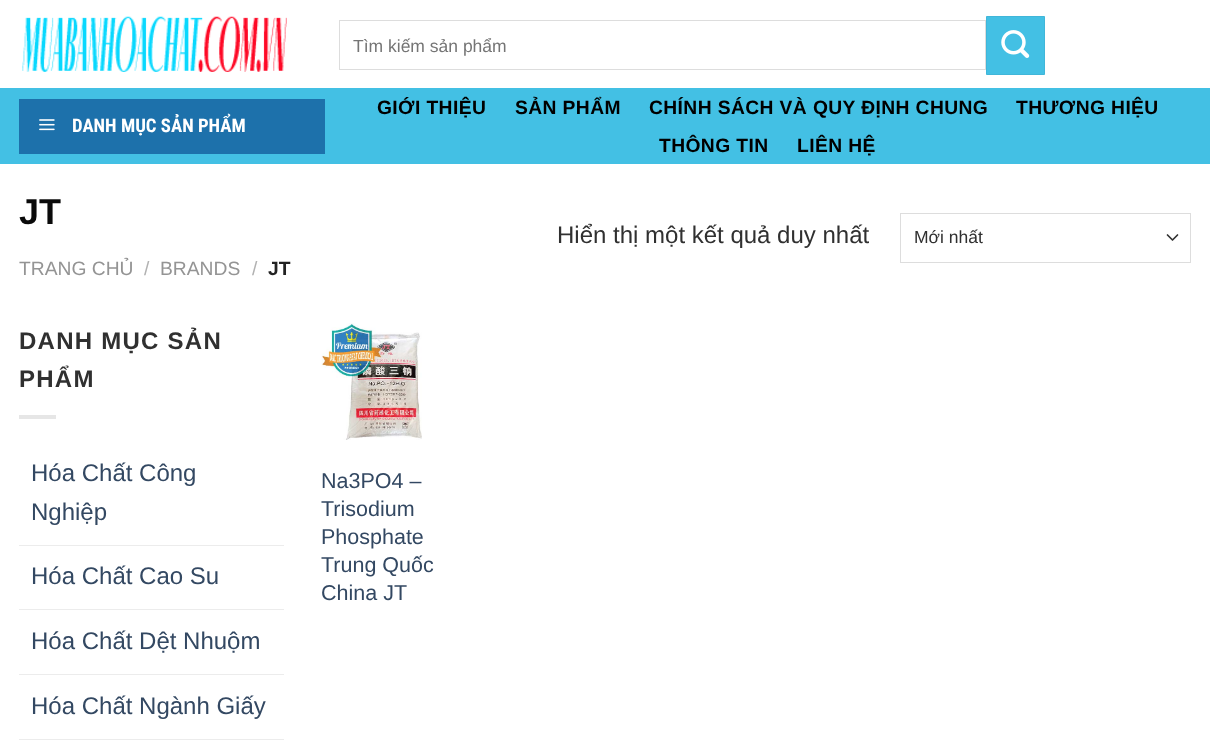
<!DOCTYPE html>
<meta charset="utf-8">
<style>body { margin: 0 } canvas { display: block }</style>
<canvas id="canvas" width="1210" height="750"></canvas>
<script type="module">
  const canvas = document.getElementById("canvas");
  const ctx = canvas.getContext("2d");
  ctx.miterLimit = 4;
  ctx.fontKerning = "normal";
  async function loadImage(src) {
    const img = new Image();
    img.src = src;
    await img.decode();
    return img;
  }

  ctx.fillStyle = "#ffffff";
  ctx.fillRect(0, 0, 1210, 750);
  ctx.drawImage(await loadImage("img1.png"), 22, 16, 265, 56);
  ctx.strokeStyle = "#dddddd";
  ctx.strokeRect(339.5, 20.5, 646, 49);
  ctx.font = "17.5px Liberation Sans";
  ctx.fillStyle = "#757575";
  ctx.fillText("Tìm kiếm sản phẩm", 353, 52);
  ctx.fillStyle = "#43c0e4";
  ctx.beginPath();
  ctx.rect(986.5, 16.5, 58, 58);
  ctx.fill();
  ctx.strokeStyle = "#40b6d9";
  ctx.stroke();
  ctx.drawImage(await loadImage("img2.png"), 1001, 30, 29, 28);
  ctx.fillRect(0, 88, 1210, 76);
  ctx.fillStyle = "#1d71ab";
  ctx.fillRect(19, 99, 306, 55);
  ctx.drawImage(await loadImage("img3.png"), 39, 119, 16, 12);
  ctx.font = "bold 18.75px Roboto Condensed";
  ctx.fillStyle = "#ffffff";
  ctx.fillText("DANH MỤC SẢN PHẨM", 72, 132);
  ctx.letterSpacing = "0.4px";
  ctx.font = "bold 19.25px Liberation Sans";
  ctx.fillStyle = "#000000";
  ctx.fillText("GIỚI THIỆU", 377, 114);
  ctx.fillText("SẢN PHẨM", 515, 114);
  ctx.fillText("CHÍNH SÁCH VÀ QUY ĐỊNH CHUNG", 649, 114);
  ctx.fillText("THƯƠNG HIỆU", 1016, 114);
  ctx.fillText("THÔNG TIN", 659, 152);
  ctx.fillText("LIÊN HỆ", 797, 152);
  ctx.letterSpacing = "0px";
  ctx.font = "bold 36px Liberation Sans";
  ctx.fillStyle = "#0a0a0a";
  ctx.fillText("JT", 19, 224);
  ctx.font = "19.25px Liberation Sans";
  ctx.fillStyle = "#949494";
  ctx.fillText("TRANG CHỦ", 19, 275);
  ctx.fillStyle = "#b2b2b2";
  ctx.fillText("/", 144, 275);
  ctx.fillStyle = "#949494";
  ctx.fillText("BRANDS", 160, 275);
  ctx.fillStyle = "#b2b2b2";
  ctx.fillText("/", 252, 275);
  ctx.font = "bold 19.25px Liberation Sans";
  ctx.fillStyle = "#222222";
  ctx.fillText("JT", 268, 275);
  ctx.font = "24px Liberation Sans";
  ctx.fillStyle = "#303030";
  ctx.fillText("Hiển thị một kết quả duy nhất", 557, 243);
  ctx.beginPath();
  ctx.moveTo(1167.5, 235);
  ctx.lineTo(1172.5, 240);
  ctx.lineTo(1177.5, 235);
  ctx.strokeStyle = "#333333";
  ctx.lineWidth = 1.7;
  ctx.lineCap = "round";
  ctx.lineJoin = "round";
  ctx.stroke();
  ctx.strokeStyle = "#dddddd";
  ctx.lineWidth = 1;
  ctx.lineJoin = "miter";
  ctx.strokeRect(900.5, 213.5, 290, 49);
  ctx.font = "17.5px Liberation Sans";
  ctx.fillText("Mới nhất", 914, 243);
  ctx.letterSpacing = "1.25px";
  ctx.font = "bold 24px Liberation Sans";
  ctx.fillText("DANH MỤC SẢN", 19, 349);
  ctx.fillText("PHẨM", 19, 387);
  ctx.fillStyle = "#e6e6e6";
  ctx.fillRect(19, 415, 37, 4);
  ctx.letterSpacing = "0px";
  ctx.font = "24px Liberation Sans";
  ctx.fillStyle = "#334862";
  ctx.fillText("Hóa Chất Công", 31, 481);
  ctx.fillText("Nghiệp", 31, 520);
  ctx.fillStyle = "#ececec";
  ctx.fillRect(19, 545, 265, 1);
  ctx.fillStyle = "#334862";
  ctx.fillText("Hóa Chất Cao Su", 31, 584);
  ctx.fillStyle = "#ececec";
  ctx.fillRect(19, 609, 265, 1);
  ctx.fillStyle = "#334862";
  ctx.fillText("Hóa Chất Dệt Nhuộm", 31, 649);
  ctx.fillStyle = "#ececec";
  ctx.fillRect(19, 674, 265, 1);
  ctx.fillStyle = "#334862";
  ctx.fillText("Hóa Chất Ngành Giấy", 31, 714);
  ctx.fillStyle = "#ececec";
  ctx.fillRect(19, 739, 265, 1);
  ctx.drawImage(await loadImage("img4.png"), 321, 323, 101, 117);
  ctx.font = "21.5px Liberation Sans";
  ctx.fillStyle = "#334862";
  ctx.fillText("Na3PO4 –", 321, 488);
  ctx.fillText("Trisodium", 321, 516);
  ctx.fillText("Phosphate", 321, 544);
  ctx.fillText("Trung Quốc", 321, 572);
  ctx.fillText("China JT", 321, 600);
</script>
